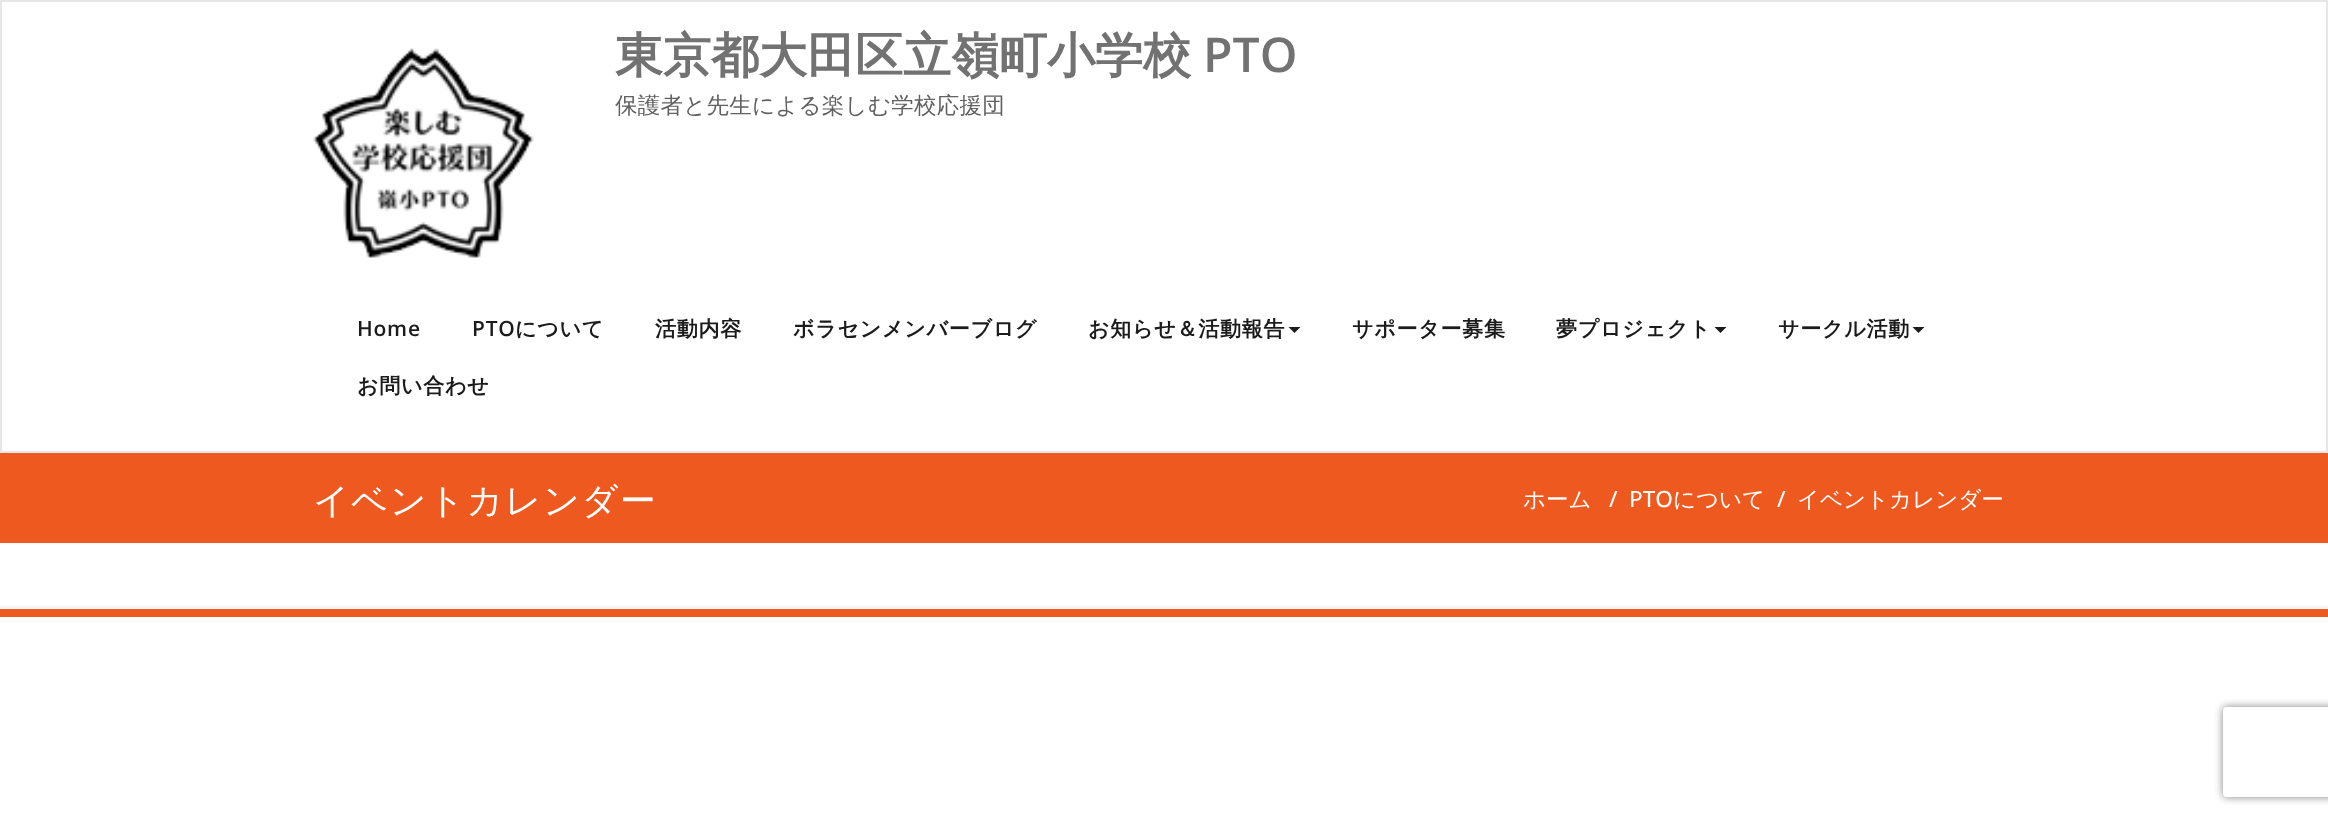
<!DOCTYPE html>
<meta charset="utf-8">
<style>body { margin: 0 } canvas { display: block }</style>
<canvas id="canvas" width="2328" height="817"></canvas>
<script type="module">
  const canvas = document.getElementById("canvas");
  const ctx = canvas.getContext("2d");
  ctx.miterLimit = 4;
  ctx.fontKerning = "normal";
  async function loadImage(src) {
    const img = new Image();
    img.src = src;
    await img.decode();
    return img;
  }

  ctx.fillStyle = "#ffffff";
  ctx.fillRect(0, 0, 2328, 817);
  ctx.strokeStyle = "#e7e7e7";
  ctx.lineWidth = 2;
  ctx.strokeRect(1, 1, 2326, 451);
  ctx.drawImage(await loadImage("img1.png"), 313, 48, 221, 210);
  ctx.font = "bold 48px WenQuanYi Zen Hei";
  ctx.fillStyle = "#727272";
  ctx.fillText("東京都大田区立嶺町小学校", 615, 72);
  ctx.font = "600 48px Open Sans";
  ctx.fillText("PTO", 1203, 72);
  ctx.letterSpacing = "0.25px";
  ctx.font = "500 22.5px WenQuanYi Zen Hei";
  ctx.fillStyle = "#616161";
  ctx.fillText("保護者と先生による楽しむ学校応援団", 615, 113);
  ctx.letterSpacing = "0.75px";
  ctx.font = "600 21px Open Sans";
  ctx.fillStyle = "#1b1b1b";
  ctx.fillText("Home", 357, 336);
  ctx.fillText("PTO", 472, 336);
  ctx.font = "bold 21px WenQuanYi Zen Hei";
  ctx.fillText("について", 515, 336);
  ctx.fillText("活動内容", 655, 336);
  ctx.fillText("ボラセンメンバーブログ", 793, 336);
  ctx.fillText("お知らせ＆活動報告", 1088, 336);
  ctx.beginPath();
  ctx.moveTo(1288.5, 327);
  ctx.lineTo(1300.5, 327);
  ctx.lineTo(1294.5, 333);
  ctx.closePath();
  ctx.fill();
  ctx.fillText("サポーター募集", 1352, 336);
  ctx.fillText("夢プロジェクト", 1556, 336);
  ctx.beginPath();
  ctx.moveTo(1714.5, 327);
  ctx.lineTo(1726.5, 327);
  ctx.lineTo(1720.5, 333);
  ctx.closePath();
  ctx.fill();
  ctx.fillText("サークル活動", 1778, 336);
  ctx.beginPath();
  ctx.moveTo(1912.5, 327);
  ctx.lineTo(1924.5, 327);
  ctx.lineTo(1918.5, 333);
  ctx.closePath();
  ctx.fill();
  ctx.fillText("お問い合わせ", 357, 393);
  ctx.fillStyle = "#ee591f";
  ctx.fillRect(0, 453, 2328, 90);
  ctx.letterSpacing = "1.5px";
  ctx.font = "500 36px WenQuanYi Zen Hei";
  ctx.fillStyle = "#ffffff";
  ctx.fillText("イベントカレンダー", 313, 513);
  ctx.letterSpacing = "0px";
  ctx.font = "500 22.5px WenQuanYi Zen Hei";
  ctx.fillText("ホーム", 1523, 507);
  ctx.font = "500 22.5px Open Sans";
  ctx.fillText("/", 1609, 507);
  ctx.fillText("PTO", 1629, 507);
  ctx.font = "500 22.5px WenQuanYi Zen Hei";
  ctx.fillText("について", 1673, 507);
  ctx.font = "500 22.5px Open Sans";
  ctx.fillText("/", 1777, 507);
  ctx.font = "500 22.5px WenQuanYi Zen Hei";
  ctx.fillText("イベントカレンダー", 1797, 507);
  ctx.fillStyle = "#f4f4f4";
  ctx.fillRect(0, 606, 2328, 2);
  ctx.fillStyle = "#ee591f";
  ctx.fillRect(0, 609, 2328, 8);
  ctx.save();
  ctx.beginPath();
  ctx.moveTo(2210, 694);
  ctx.lineTo(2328, 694);
  ctx.lineTo(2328, 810);
  ctx.lineTo(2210, 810);
  ctx.closePath();
  ctx.moveTo(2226, 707);
  ctx.lineTo(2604, 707);
  ctx.bezierCurveTo(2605.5, 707, 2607, 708.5, 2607, 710);
  ctx.lineTo(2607, 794);
  ctx.bezierCurveTo(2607, 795.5, 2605.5, 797, 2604, 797);
  ctx.lineTo(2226, 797);
  ctx.bezierCurveTo(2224.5, 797, 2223, 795.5, 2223, 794);
  ctx.lineTo(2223, 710);
  ctx.bezierCurveTo(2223, 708.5, 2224.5, 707, 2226, 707);
  ctx.closePath();
  ctx.clip("evenodd");
  ctx.fillStyle = "#808080";
  ctx.filter = "blur(4px)";
  ctx.beginPath();
  ctx.roundRect(2223, 707, 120, 90, 3);
  ctx.fill();
  ctx.filter = "none";
  ctx.restore();
</script>
